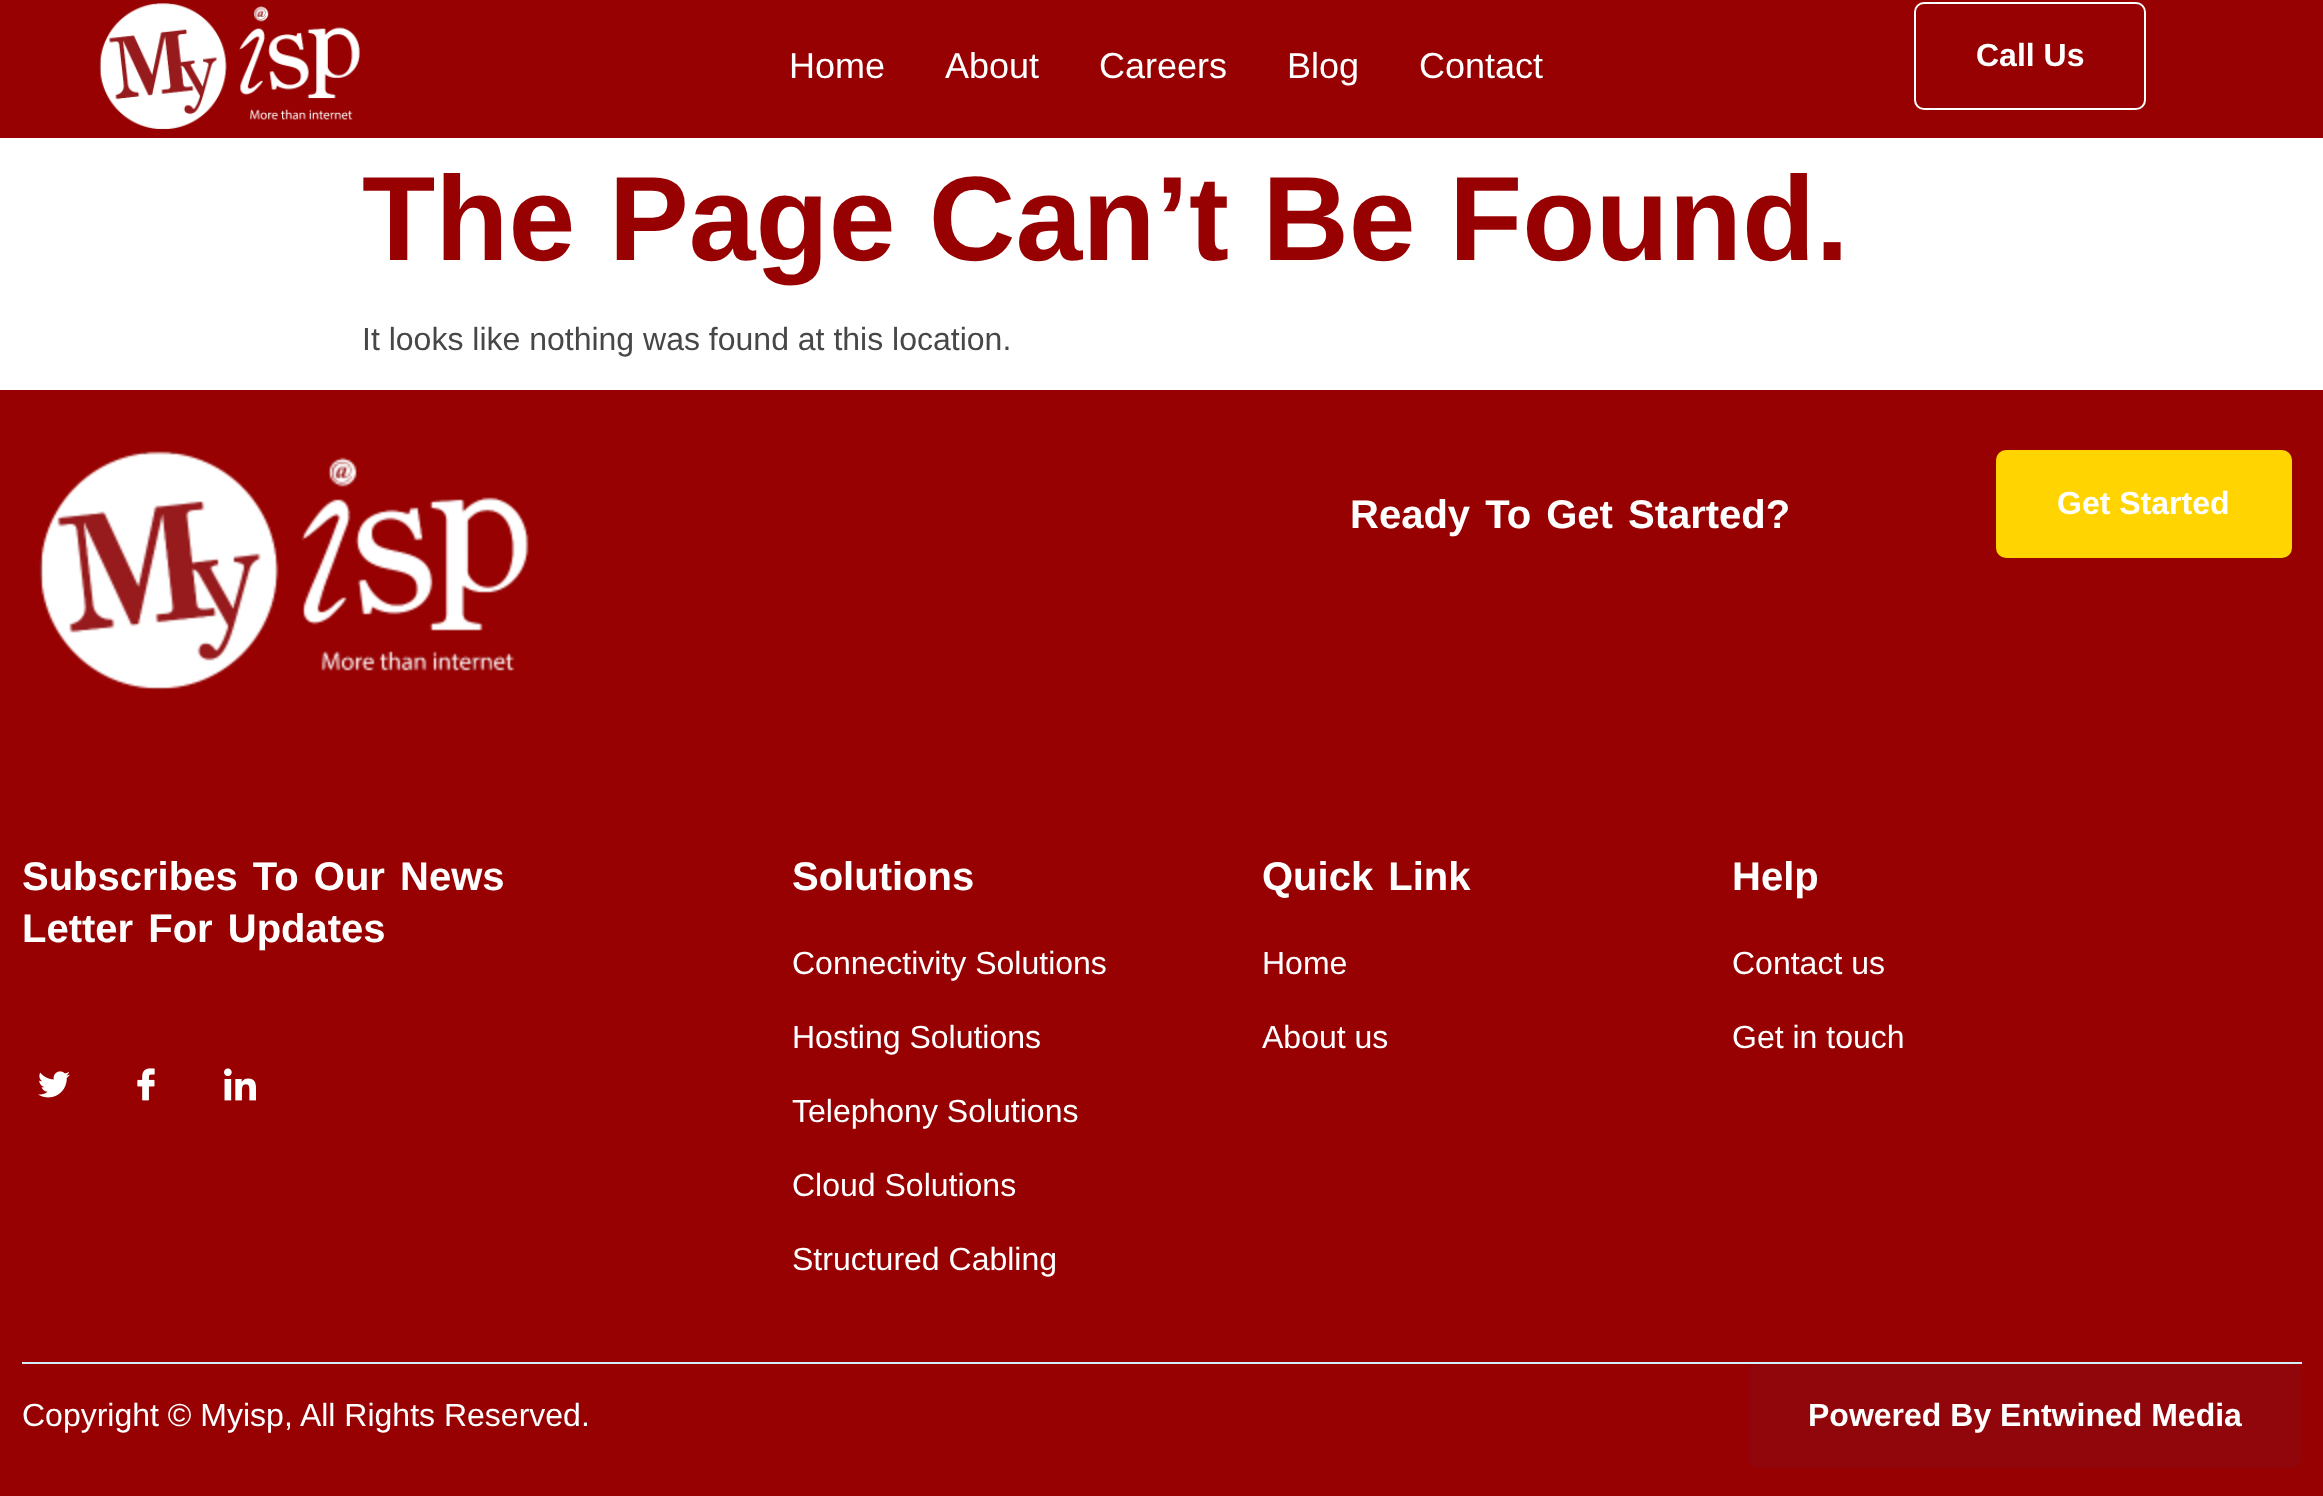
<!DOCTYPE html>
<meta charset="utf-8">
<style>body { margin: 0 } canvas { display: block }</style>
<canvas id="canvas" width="2323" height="1496"></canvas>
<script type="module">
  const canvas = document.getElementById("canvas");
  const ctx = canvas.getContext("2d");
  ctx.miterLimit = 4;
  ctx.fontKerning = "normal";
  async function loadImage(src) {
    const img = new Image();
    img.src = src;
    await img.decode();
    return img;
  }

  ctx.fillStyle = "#ffffff";
  ctx.fillRect(0, 0, 2323, 1496);
  ctx.fillStyle = "#970101";
  ctx.fillRect(0, 0, 2323, 138);
  ctx.drawImage(await loadImage("img1.png"), 99, 3, 261, 127);
  ctx.font = "36px Liberation Sans";
  ctx.fillStyle = "#ffffff";
  ctx.fillText("Home", 789, 78);
  ctx.fillText("About", 945, 78);
  ctx.fillText("Careers", 1099, 78);
  ctx.fillText("Blog", 1287, 78);
  ctx.fillText("Contact", 1419, 78);
  ctx.beginPath();
  ctx.roundRect(1915, 3, 230, 106, 9);
  ctx.strokeStyle = "#ffffff";
  ctx.lineWidth = 2;
  ctx.stroke();
  ctx.font = "bold 32px Liberation Sans";
  ctx.fillText("Call Us", 1976, 66);
  ctx.font = "bold 120px Liberation Sans";
  ctx.fillStyle = "#970101";
  ctx.fillText("The Page Can’t Be Found.", 362, 260);
  ctx.font = "32px Liberation Sans";
  ctx.fillStyle = "#474747";
  ctx.fillText("It looks like nothing was found at this location.", 362, 350);
  ctx.fillStyle = "#970101";
  ctx.fillRect(0, 390, 2323, 1106);
  ctx.drawImage(await loadImage("img2.png"), 39, 451, 490, 239);
  ctx.wordSpacing = "4px";
  ctx.font = "bold 40px Liberation Sans";
  ctx.fillStyle = "#ffffff";
  ctx.fillText("Ready To Get Started?", 1350, 528);
  ctx.fillStyle = "#ffd401";
  ctx.beginPath();
  ctx.roundRect(1997, 451, 294, 106, 9);
  ctx.fill();
  ctx.strokeStyle = "#ffd401";
  ctx.stroke();
  ctx.wordSpacing = "0px";
  ctx.font = "bold 32px Liberation Sans";
  ctx.fillStyle = "#ffffff";
  ctx.fillText("Get Started", 2057, 514);
  ctx.wordSpacing = "4px";
  ctx.font = "bold 40px Liberation Sans";
  ctx.fillText("Subscribes To Our News", 22, 890);
  ctx.fillText("Letter For Updates", 22, 942);
  ctx.drawImage(await loadImage("img3.png"), 38, 1071, 32, 27);
  ctx.drawImage(await loadImage("img4.png"), 137, 1068, 18, 33);
  ctx.drawImage(await loadImage("img5.png"), 224, 1068, 32, 33);
  ctx.wordSpacing = "0px";
  ctx.fillText("Solutions", 792, 890);
  ctx.font = "32px Liberation Sans";
  ctx.fillText("Connectivity Solutions", 792, 974);
  ctx.fillText("Hosting Solutions", 792, 1048);
  ctx.fillText("Telephony Solutions", 792, 1122);
  ctx.fillText("Cloud Solutions", 792, 1196);
  ctx.fillText("Structured Cabling", 792, 1270);
  ctx.wordSpacing = "4px";
  ctx.font = "bold 40px Liberation Sans";
  ctx.fillText("Quick Link", 1262, 890);
  ctx.wordSpacing = "0px";
  ctx.font = "32px Liberation Sans";
  ctx.fillText("Home", 1262, 974);
  ctx.fillText("About us", 1262, 1048);
  ctx.font = "bold 40px Liberation Sans";
  ctx.fillText("Help", 1732, 890);
  ctx.font = "32px Liberation Sans";
  ctx.fillText("Contact us", 1732, 974);
  ctx.fillText("Get in touch", 1732, 1048);
  ctx.fillStyle = "#d3efff";
  ctx.fillRect(22, 1362, 2280, 2);
  ctx.fillStyle = "#ffffff";
  ctx.fillText("Copyright © Myisp, All Rights Reserved.", 22, 1426);
  ctx.fillStyle = "#91060a";
  ctx.beginPath();
  ctx.roundRect(1748, 1364, 554, 104, 10);
  ctx.fill();
  ctx.font = "bold 32px Liberation Sans";
  ctx.fillStyle = "#ffffff";
  ctx.fillText("Powered By Entwined Media", 1808, 1426);
</script>
